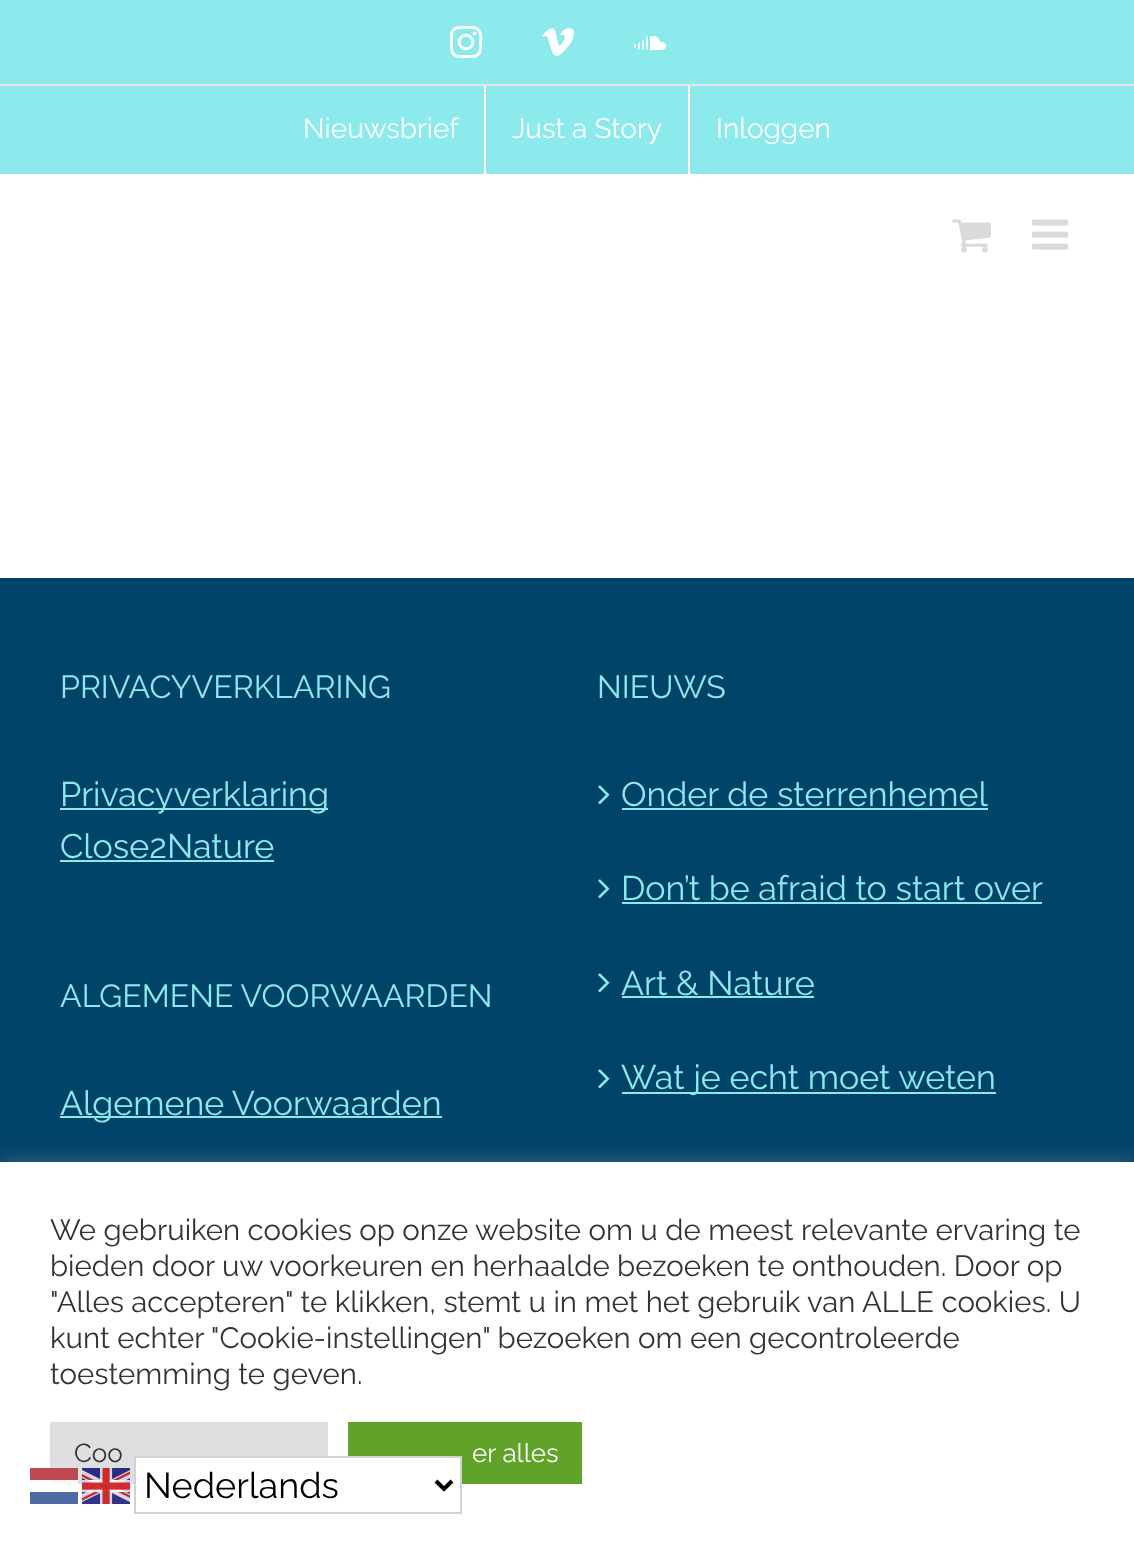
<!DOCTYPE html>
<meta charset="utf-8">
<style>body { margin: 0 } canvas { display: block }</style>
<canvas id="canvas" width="1134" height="1544"></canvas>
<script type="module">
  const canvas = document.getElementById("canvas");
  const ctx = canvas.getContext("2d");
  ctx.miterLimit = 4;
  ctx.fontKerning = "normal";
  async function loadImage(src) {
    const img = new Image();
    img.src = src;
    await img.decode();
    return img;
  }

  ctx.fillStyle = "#ffffff";
  ctx.fillRect(0, 0, 1134, 1544);
  ctx.fillStyle = "#8ceaed";
  ctx.fillRect(0, 0, 1134, 174);
  ctx.fillStyle = "#e5e5e5";
  ctx.fillRect(0, 84, 1134, 2);
  ctx.drawImage(await loadImage("img1.png"), 450, 26, 32, 32);
  ctx.drawImage(await loadImage("img2.png"), 542, 28, 32, 28);
  ctx.drawImage(await loadImage("img3.png"), 634, 36, 32, 14);
  ctx.font = "28px Raleway";
  ctx.fillStyle = "#ffffff";
  ctx.fillText("Nieuwsbrief", 303, 138);
  ctx.fillRect(484, 86, 2, 88);
  ctx.fillText("Just a Story", 512, 138);
  ctx.fillRect(688, 86, 2, 88);
  ctx.fillText("Inloggen", 716, 138);
  ctx.drawImage(await loadImage("img4.png"), 952, 219, 39, 34);
  ctx.drawImage(await loadImage("img5.png"), 1032, 219, 36, 31);
  ctx.fillStyle = "#004369";
  ctx.fillRect(0, 578, 1134, 584);
  ctx.font = "32px Raleway";
  ctx.fillStyle = "#8ceaed";
  ctx.fillText("PRIVACYVERKLARING", 60, 698);
  ctx.fillRect(60, 808, 268, 2);
  ctx.font = "34px Raleway";
  ctx.fillText("Privacyverklaring", 60, 806);
  ctx.fillText("Close2Nature", 60, 858);
  ctx.fillRect(60, 860, 214, 2);
  ctx.font = "32px Raleway";
  ctx.fillText("ALGEMENE VOORWAARDEN", 60, 1007);
  ctx.fillRect(60, 1116, 382, 2);
  ctx.font = "34px Raleway";
  ctx.fillText("Algemene Voorwaarden", 60, 1115);
  ctx.font = "32px Raleway";
  ctx.fillText("NIEUWS", 597, 698);
  ctx.drawImage(await loadImage("img6.png"), 598, 785, 12, 20);
  ctx.font = "34px Raleway";
  ctx.fillText("Onder de sterrenhemel", 621, 806);
  ctx.fillRect(622, 808, 366, 2);
  ctx.drawImage(await loadImage("img6.png"), 598, 879, 12, 20);
  ctx.fillText("Don’t be afraid to start over", 621, 900);
  ctx.fillRect(622, 902, 420, 2);
  ctx.drawImage(await loadImage("img6.png"), 598, 973, 12, 20);
  ctx.fillText("Art & Nature", 621, 995);
  ctx.fillRect(622, 996, 192, 2);
  ctx.drawImage(await loadImage("img6.png"), 598, 1069, 12, 20);
  ctx.fillRect(622, 1092, 374, 2);
  ctx.fillText("Wat je echt moet weten", 621, 1089);
  ctx.fillStyle = "rgba(172, 171, 171, 0.3)";
  ctx.filter = "blur(10px)";
  ctx.beginPath();
  ctx.rect(0, 1160, 1134, 382);
  ctx.fill();
  ctx.filter = "none";
  ctx.fillStyle = "#ffffff";
  ctx.fillRect(0, 1162, 1134, 382);
  ctx.fillStyle = "#be4953";
  ctx.fillRect(30, 1468, 20, 12);
  ctx.font = "29.35px Raleway";
  ctx.fillStyle = "#333333";
  ctx.fillText("We gebruiken cookies op onze website om u de meest relevante ervaring te", 50, 1240);
  ctx.fillText("bieden door uw voorkeuren en herhaalde bezoeken te onthouden. Door op", 50, 1276);
  ctx.fillText("\"Alles accepteren\" te klikken, stemt u in met het gebruik van ALLE cookies. U", 50, 1312);
  ctx.fillText("kunt echter \"Cookie-instellingen\" bezoeken om een gecontroleerde", 50, 1348);
  ctx.fillText("toestemming te geven.", 50, 1384);
  ctx.fillStyle = "#dedfe0";
  ctx.fillRect(50, 1422, 278, 62);
  ctx.fillStyle = "#f8f9f9";
  ctx.fillRect(50, 1480, 28, 4);
  ctx.fillStyle = "#bd4852";
  ctx.fillRect(50, 1468, 28, 12);
  ctx.font = "26px Raleway";
  ctx.fillStyle = "#333333";
  ctx.fillText("Coo", 74, 1462);
  ctx.fillStyle = "#61a229";
  ctx.fillRect(348, 1422, 234, 62);
  ctx.fillStyle = "#ffffff";
  ctx.fillText("er alles", 472, 1462);
  ctx.fillStyle = "#4d6ba2";
  ctx.fillRect(30, 1492, 48, 12);
  ctx.drawImage(await loadImage("img7.png"), 82, 1468, 48, 36);
  ctx.fillStyle = "#ffffff";
  ctx.fillRect(136, 1458, 324, 26);
  ctx.strokeStyle = "#d2d2d2";
  ctx.lineWidth = 2;
  ctx.strokeRect(135, 1457, 326, 56);
  ctx.beginPath();
  ctx.moveTo(436, 1481);
  ctx.lineTo(444, 1489);
  ctx.lineTo(452, 1481);
  ctx.strokeStyle = "#000000";
  ctx.lineWidth = 4;
  ctx.stroke();
  ctx.font = "36px Raleway";
  ctx.fillStyle = "#000000";
  ctx.fillText("Nederlands", 144, 1498);
</script>
